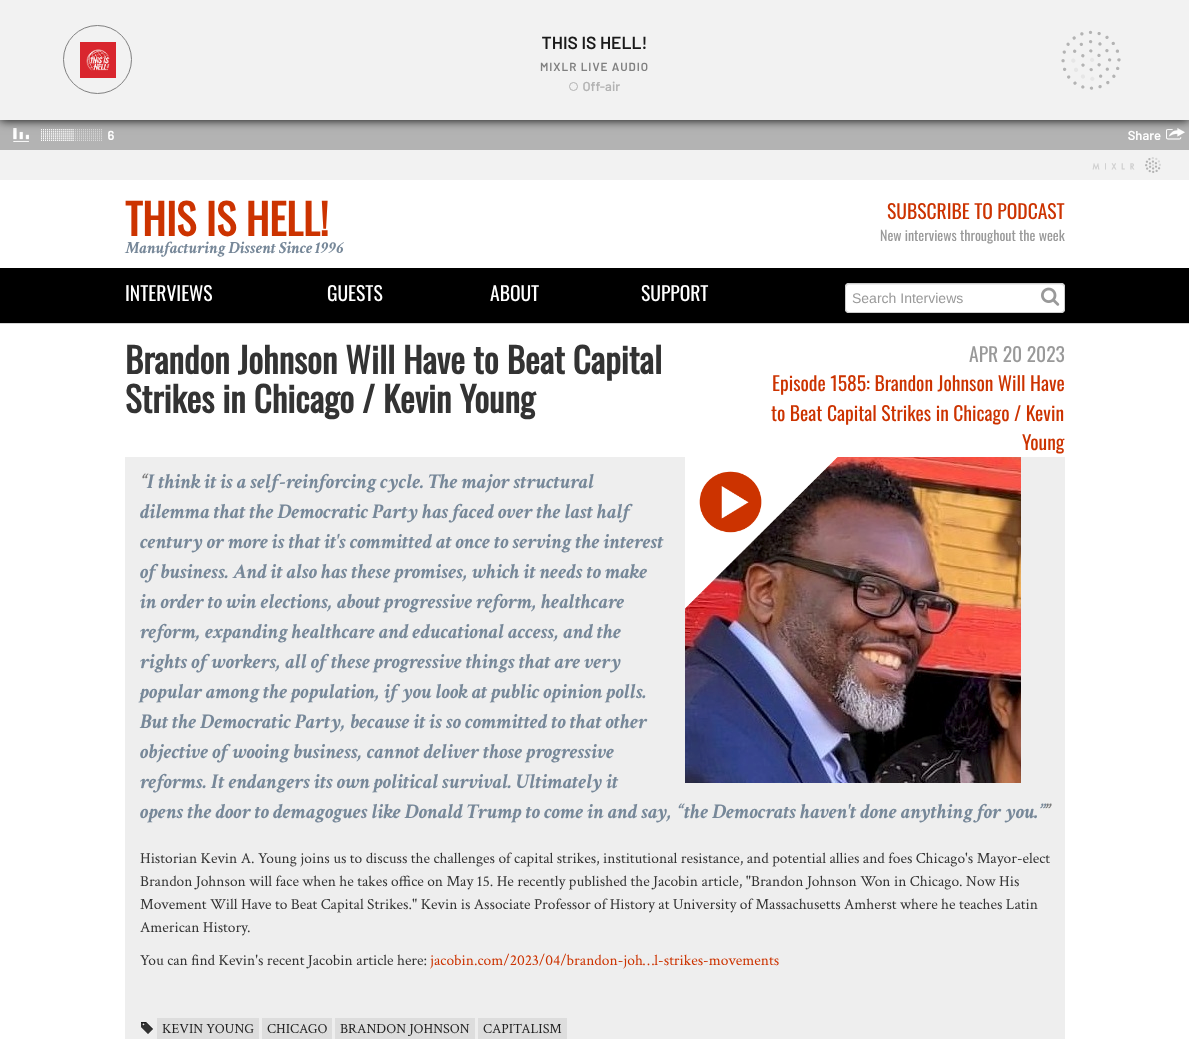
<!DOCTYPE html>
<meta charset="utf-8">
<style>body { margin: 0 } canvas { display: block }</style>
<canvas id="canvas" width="1189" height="1039"></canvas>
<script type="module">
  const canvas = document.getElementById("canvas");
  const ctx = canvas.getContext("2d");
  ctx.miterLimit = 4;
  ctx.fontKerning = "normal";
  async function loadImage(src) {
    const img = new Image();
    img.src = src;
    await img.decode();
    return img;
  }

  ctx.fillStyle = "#ffffff";
  ctx.fillRect(0, 0, 1189, 1039);
  ctx.drawImage(await loadImage("img1.png"), 0, 0, 1189, 180);
  ctx.font = "bold 42px Oswald";
  ctx.fillStyle = "#cc3300";
  ctx.fillText("THIS IS HELL!", 125, 236);
  ctx.font = "italic bold 17px Crimson Text";
  ctx.fillStyle = "#778899";
  ctx.fillText("Manufacturing Dissent Since 1996", 125, 253);
  ctx.font = "19.6px Oswald";
  ctx.fillStyle = "#cc3300";
  ctx.fillText("SUBSCRIBE TO PODCAST", 887, 219);
  ctx.font = "14px Oswald";
  ctx.fillStyle = "#999999";
  ctx.fillText("New interviews throughout the week", 880, 241);
  ctx.fillStyle = "#000000";
  ctx.fillRect(0, 268, 1189, 55);
  ctx.fillStyle = "#d4d4d4";
  ctx.fillRect(0, 323, 1189, 1);
  ctx.font = "19.6px Oswald";
  ctx.fillStyle = "#ffffff";
  ctx.fillText("INTERVIEWS", 125, 301);
  ctx.fillText("GUESTS", 327, 301);
  ctx.fillText("ABOUT", 490, 301);
  ctx.fillText("SUPPORT", 641, 301);
  ctx.beginPath();
  ctx.roundRect(845, 283, 220, 30, 4);
  ctx.fill();
  ctx.fillStyle = "#ececec";
  ctx.beginPath();
  ctx.moveTo(849, 285);
  ctx.lineTo(1061, 285);
  ctx.bezierCurveTo(1063, 285, 1064, 286, 1064, 288);
  ctx.lineTo(1064, 287);
  ctx.bezierCurveTo(1064, 285, 1063, 284, 1061, 284);
  ctx.lineTo(849, 284);
  ctx.bezierCurveTo(847, 284, 846, 285, 846, 287);
  ctx.lineTo(846, 288);
  ctx.bezierCurveTo(846, 286, 847, 285, 849, 285);
  ctx.closePath();
  ctx.fill();
  ctx.beginPath();
  ctx.roundRect(845.5, 283.5, 219, 29, 3.5);
  ctx.strokeStyle = "#cccccc";
  ctx.stroke();
  ctx.font = "14px Liberation Sans";
  ctx.fillStyle = "#999999";
  ctx.fillText("Search Interviews", 852, 303);
  ctx.drawImage(await loadImage("img2.png"), 1041, 287, 19, 19);
  ctx.font = "bold 35px Oswald";
  ctx.fillStyle = "#333333";
  ctx.fillText("Brandon Johnson Will Have to Beat Capital", 125, 374);
  ctx.fillText("Strikes in Chicago / Kevin Young", 125, 413);
  ctx.font = "19.6px Oswald";
  ctx.fillStyle = "#999999";
  ctx.fillText("APR 20 2023", 969, 362);
  ctx.fillStyle = "#cc3300";
  ctx.fillText("Episode 1585: Brandon Johnson Will Have", 772, 391);
  ctx.fillText("to Beat Capital Strikes in Chicago / Kevin", 771, 421);
  ctx.fillText("Young", 1022, 450);
  ctx.fillStyle = "#eeeeee";
  ctx.fillRect(125, 457, 940, 582);
  ctx.drawImage(await loadImage("img3.png"), 685, 457, 336, 326);
  ctx.drawImage(await loadImage("img4.png"), 685, 457, 153, 152);
  ctx.font = "italic bold 21px Crimson Text";
  ctx.fillStyle = "#7a7a7a";
  ctx.fillText("“", 140, 488);
  ctx.fillStyle = "#778899";
  ctx.fillText("I think it is a self-reinforcing cycle. The major structural", 147, 488);
  ctx.fillText("dilemma that the Democratic Party has faced over the last half", 140, 518);
  ctx.fillText("century or more is that it's committed at once to serving the interest", 140, 548);
  ctx.fillText("of business. And it also has these promises, which it needs to make", 140, 578);
  ctx.fillText("in order to win elections, about progressive reform, healthcare", 140, 608);
  ctx.fillText("reform, expanding healthcare and educational access, and the", 140, 638);
  ctx.fillText("rights of workers, all of these progressive things that are very", 140, 668);
  ctx.fillText("popular among the population, if you look at public opinion polls.", 140, 698);
  ctx.fillText("But the Democratic Party, because it is so committed to that other", 140, 728);
  ctx.fillText("objective of wooing business, cannot deliver those progressive", 140, 758);
  ctx.fillText("reforms. It endangers its own political survival. Ultimately it", 140, 788);
  ctx.fillText("opens the door to demagogues like Donald Trump to come in and say, “the Democrats haven't done anything for you.”", 140, 818);
  ctx.fillStyle = "#7a7a7a";
  ctx.fillText("”", 1044, 818);
  ctx.font = "15.4px Crimson Text";
  ctx.fillStyle = "#333333";
  ctx.fillText("Historian Kevin A. Young joins us to discuss the challenges of capital strikes, institutional resistance, and potential allies and foes Chicago's Mayor-elect", 140, 863);
  ctx.fillText("Brandon Johnson will face when he takes office on May 15. He recently published the Jacobin article, \"Brandon Johnson Won in Chicago. Now His", 140, 886);
  ctx.fillText("Movement Will Have to Beat Capital Strikes.\" Kevin is Associate Professor of History at University of Massachusetts Amherst where he teaches Latin", 140, 909);
  ctx.fillText("American History.", 140, 932);
  ctx.fillText("You can find Kevin's recent Jacobin article here:", 140, 965);
  ctx.fillStyle = "#cc3300";
  ctx.fillText("jacobin.com/2023/04/brandon-joh…l-strikes-movements", 430, 965);
  ctx.drawImage(await loadImage("img5.png"), 141, 1022, 12, 12);
  ctx.fillStyle = "#dddddd";
  ctx.fillRect(157, 1018, 102, 21);
  ctx.font = "14px Crimson Text";
  ctx.fillStyle = "#222222";
  ctx.fillText("KEVIN YOUNG", 162, 1033);
  ctx.fillStyle = "#dddddd";
  ctx.fillRect(262, 1018, 70, 21);
  ctx.fillStyle = "#222222";
  ctx.fillText("CHICAGO", 267, 1033);
  ctx.fillStyle = "#dddddd";
  ctx.fillRect(335, 1018, 140, 21);
  ctx.fillStyle = "#222222";
  ctx.fillText("BRANDON JOHNSON", 340, 1033);
  ctx.fillStyle = "#dddddd";
  ctx.fillRect(478, 1018, 89, 21);
  ctx.fillStyle = "#222222";
  ctx.fillText("CAPITALISM", 483, 1033);
</script>
